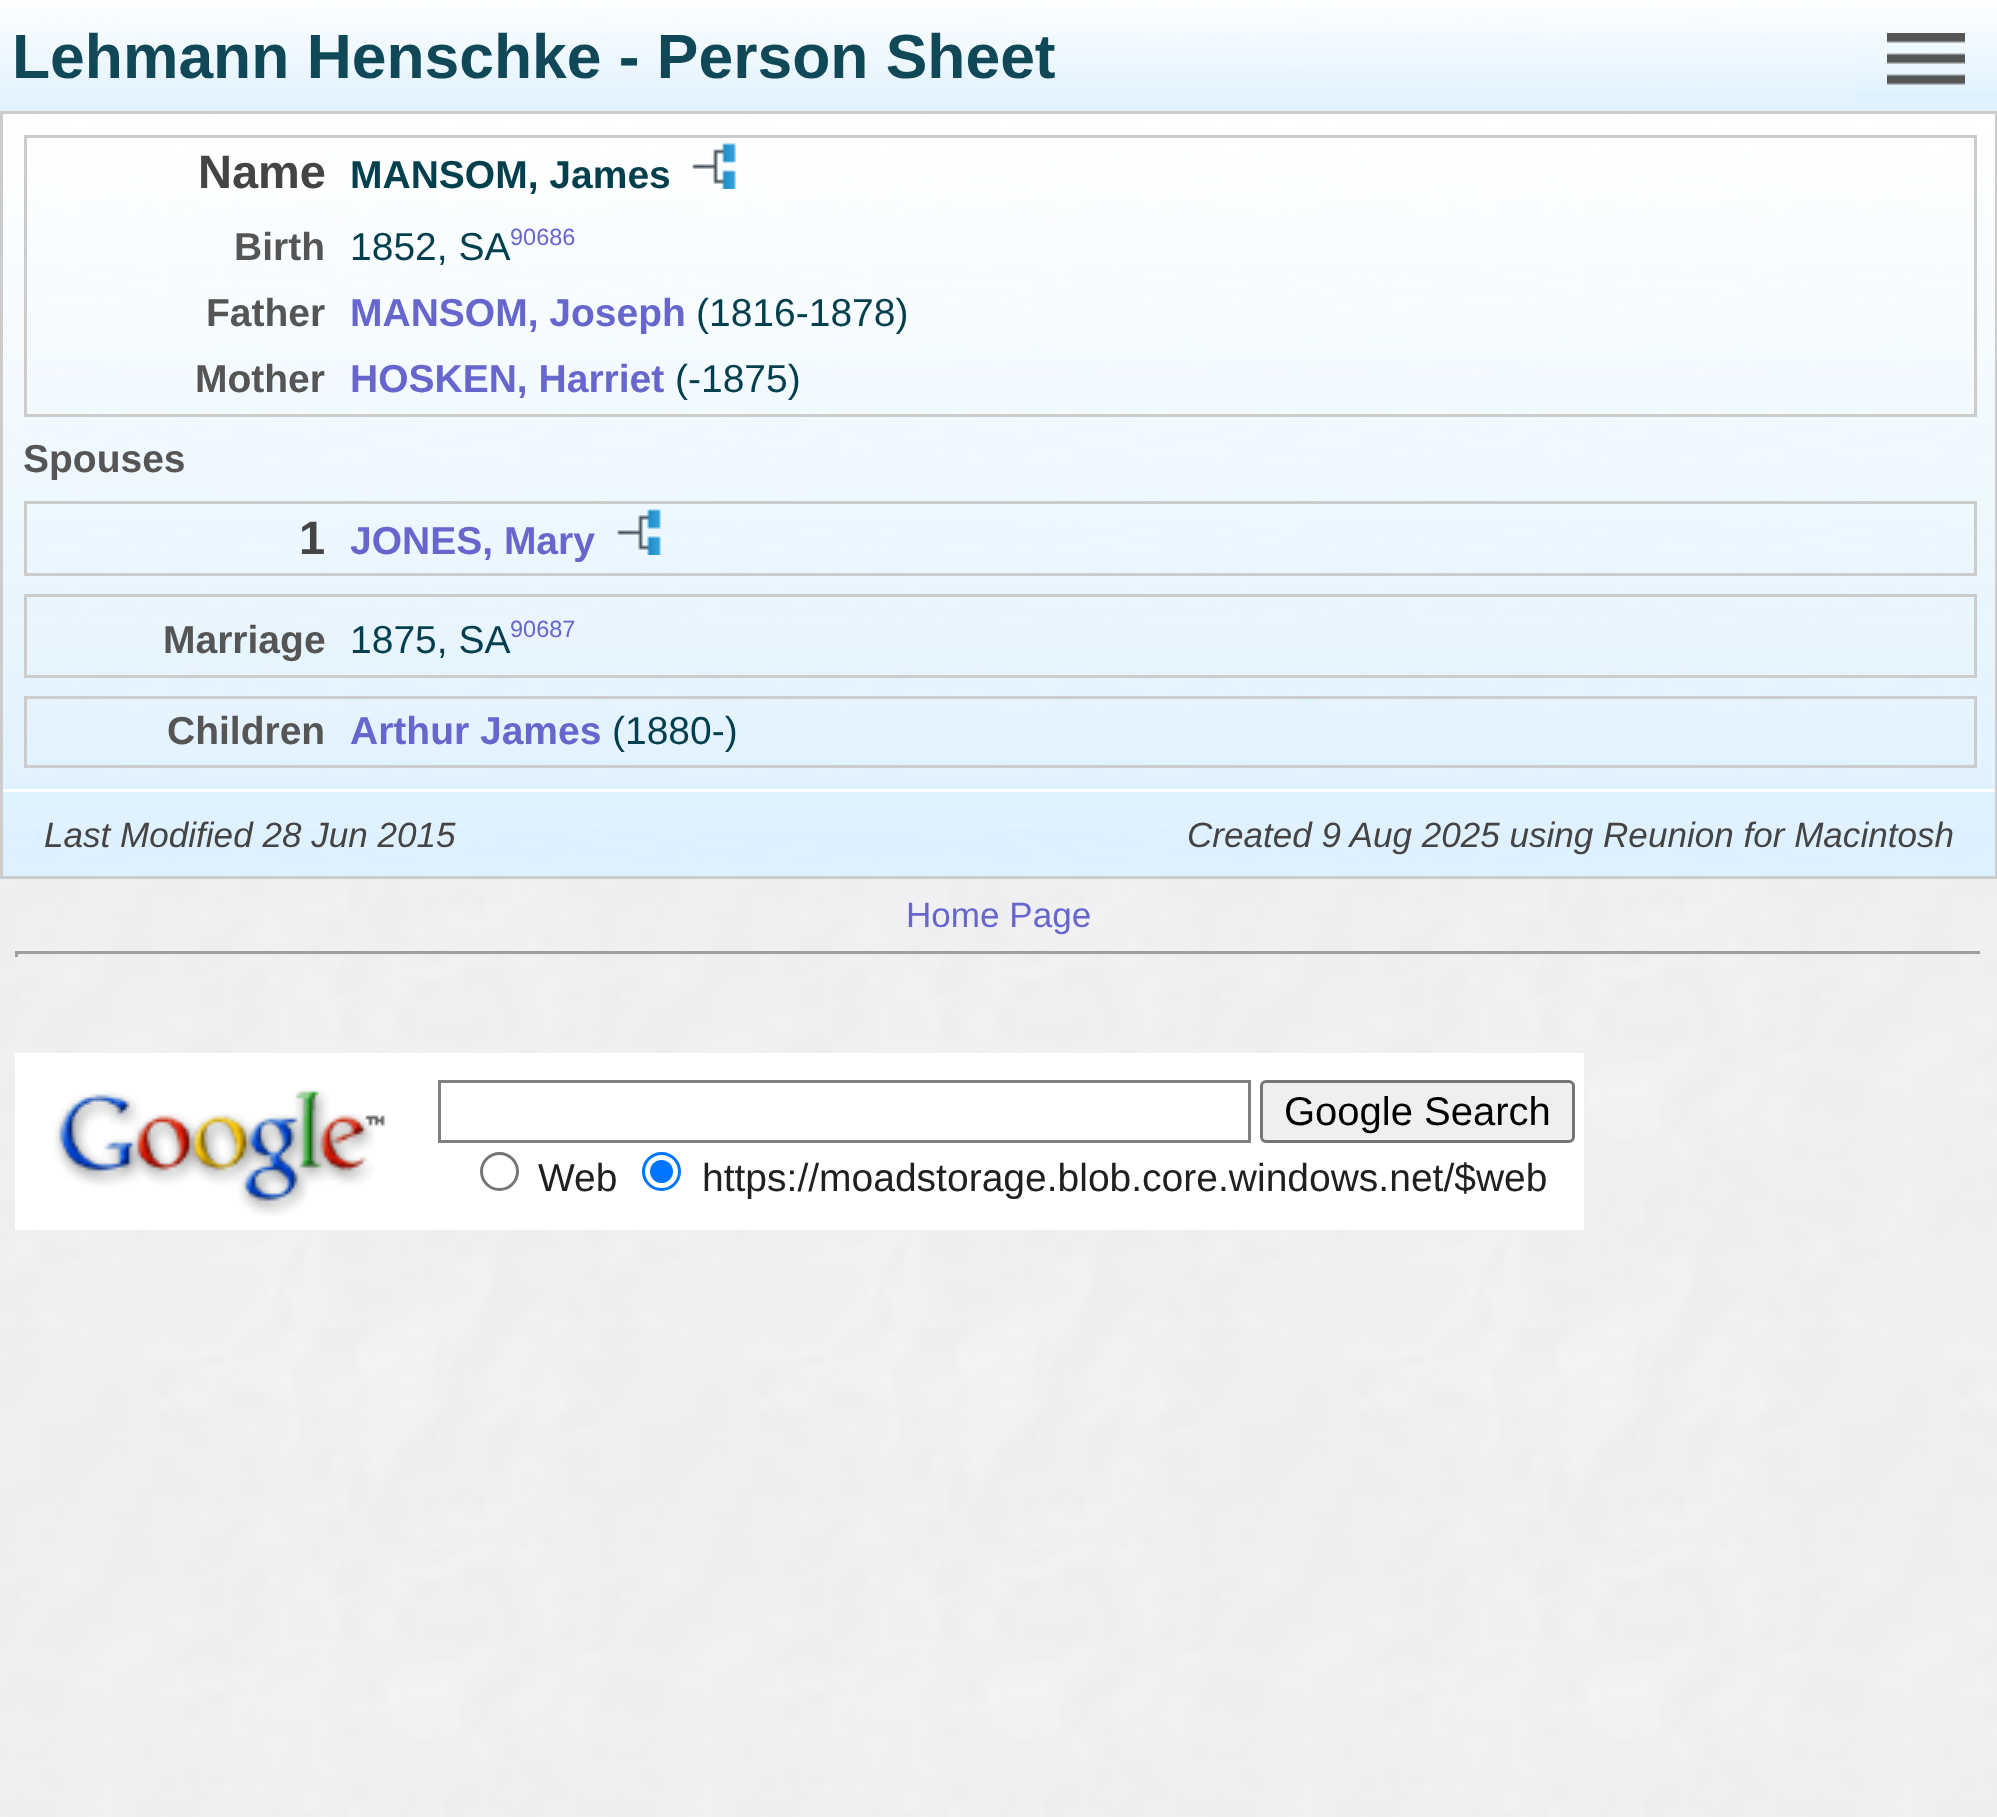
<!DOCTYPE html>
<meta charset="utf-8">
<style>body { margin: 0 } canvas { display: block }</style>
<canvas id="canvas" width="1997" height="1817"></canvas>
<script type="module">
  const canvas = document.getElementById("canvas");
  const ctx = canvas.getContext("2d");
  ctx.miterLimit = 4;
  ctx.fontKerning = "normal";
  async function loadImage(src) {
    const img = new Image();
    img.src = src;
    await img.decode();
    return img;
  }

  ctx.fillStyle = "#ffffff";
  ctx.fillRect(0, 0, 1997, 1817);
  ctx.drawImage(await loadImage("img1.png"), 0, 0, 1997, 1817);
  ctx.fillStyle = "rgba(222, 241, 255, 0.95)";
  ctx.fillRect(0, 0, 1997, 111);
  ctx.drawImage(await loadImage("img2.png"), 0, 0, 1997, 109);
  ctx.font = "bold 62.4px Liberation Sans";
  ctx.fillStyle = "#104857";
  ctx.fillText("Lehmann Henschke - Person Sheet", 12, 78);
  ctx.fillStyle = "rgba(222, 241, 255, 0.95)";
  ctx.fillRect(1857, 0, 140, 104);
  ctx.drawImage(await loadImage("img3.png"), 1857, 0, 140, 91);
  ctx.drawImage(await loadImage("img4.png"), 1887, 33, 78, 52);
  ctx.fillStyle = "#def1ff";
  ctx.fillRect(3, 114, 1992, 762);
  ctx.drawImage(await loadImage("img5.png"), 3, 114, 1992, 746);
  ctx.strokeStyle = "#cccccc";
  ctx.lineWidth = 3;
  ctx.strokeRect(1.5, 112.5, 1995, 765);
  ctx.strokeRect(25.5, 136.5, 1950, 279);
  ctx.font = "bold 47px Liberation Sans";
  ctx.fillStyle = "#444444";
  ctx.fillText("Name", 198, 188);
  ctx.font = "bold 39px Liberation Sans";
  ctx.fillStyle = "#043f4e";
  ctx.fillText("MANSOM, James", 350, 188);
  ctx.drawImage(await loadImage("img6.png"), 692, 143, 44, 46);
  ctx.fillStyle = "#555555";
  ctx.fillText("Birth", 234, 260);
  ctx.font = "39px Liberation Sans";
  ctx.fillStyle = "#043f4e";
  ctx.fillText("1852, SA", 350, 260);
  ctx.font = "23.5px Liberation Sans";
  ctx.fillStyle = "#6666cc";
  ctx.fillText("90686", 510, 245);
  ctx.font = "bold 39px Liberation Sans";
  ctx.fillStyle = "#555555";
  ctx.fillText("Father", 206, 326);
  ctx.fillStyle = "#6666cc";
  ctx.fillText("MANSOM, Joseph", 350, 326);
  ctx.font = "39px Liberation Sans";
  ctx.fillStyle = "#043f4e";
  ctx.fillText("(1816-1878)", 696, 326);
  ctx.font = "bold 39px Liberation Sans";
  ctx.fillStyle = "#555555";
  ctx.fillText("Mother", 195, 392);
  ctx.fillStyle = "#6666cc";
  ctx.fillText("HOSKEN, Harriet", 350, 392);
  ctx.font = "39px Liberation Sans";
  ctx.fillStyle = "#043f4e";
  ctx.fillText("(-1875)", 675, 392);
  ctx.font = "bold 39px Liberation Sans";
  ctx.fillStyle = "#555555";
  ctx.fillText("Spouses", 23, 472);
  ctx.strokeRect(25.5, 502.5, 1950, 72);
  ctx.font = "bold 47px Liberation Sans";
  ctx.fillStyle = "#444444";
  ctx.fillText("1", 299, 554);
  ctx.font = "bold 39px Liberation Sans";
  ctx.fillStyle = "#6666cc";
  ctx.fillText("JONES, Mary", 350, 554);
  ctx.drawImage(await loadImage("img7.png"), 617, 509, 44, 46);
  ctx.strokeRect(25.5, 595.5, 1950, 81);
  ctx.fillStyle = "#555555";
  ctx.fillText("Marriage", 163, 653);
  ctx.font = "39px Liberation Sans";
  ctx.fillStyle = "#043f4e";
  ctx.fillText("1875, SA", 350, 653);
  ctx.font = "23.5px Liberation Sans";
  ctx.fillStyle = "#6666cc";
  ctx.fillText("90687", 510, 637);
  ctx.strokeRect(25.5, 697.5, 1950, 69);
  ctx.font = "bold 39px Liberation Sans";
  ctx.fillStyle = "#555555";
  ctx.fillText("Children", 167, 744);
  ctx.fillStyle = "#6666cc";
  ctx.fillText("Arthur James", 350, 744);
  ctx.font = "39px Liberation Sans";
  ctx.fillStyle = "#043f4e";
  ctx.fillText("(1880-)", 612, 744);
  ctx.fillStyle = "#ffffff";
  ctx.fillRect(3, 789, 1992, 3);
  ctx.font = "italic 35.1px Liberation Sans";
  ctx.fillStyle = "#444444";
  ctx.fillText("Last Modified 28 Jun 2015", 44, 847);
  ctx.fillText("Created 9 Aug 2025 using Reunion for Macintosh", 1187, 847);
  ctx.font = "35.1px Liberation Sans";
  ctx.fillStyle = "#6666cc";
  ctx.fillText("Home Page", 906, 927);
  ctx.fillStyle = "#9f9f9f";
  ctx.fillRect(15, 951, 1968, 3);
  ctx.fillStyle = "#eeeeee";
  ctx.fillRect(1980, 951, 3, 6);
  ctx.fillRect(15, 954, 1968, 3);
  ctx.fillStyle = "#9f9f9f";
  ctx.fillRect(15, 951, 3, 6);
  ctx.fillStyle = "#ffffff";
  ctx.fillRect(15, 1053, 1569, 177);
  ctx.drawImage(await loadImage("img8.png"), 53, 1088, 332, 128);
  ctx.strokeStyle = "#808080";
  ctx.strokeRect(439.5, 1081.5, 810, 60);
  ctx.fillStyle = "#efefef";
  ctx.beginPath();
  ctx.roundRect(1261.5, 1081.5, 312, 60, 4.5);
  ctx.fill();
  ctx.strokeStyle = "#767676";
  ctx.stroke();
  ctx.font = "40px Liberation Sans";
  ctx.fillStyle = "#000000";
  ctx.fillText("Google Search", 1284, 1125);
  ctx.beginPath();
  ctx.arc(499.5, 1171.5, 18, 0, Math.PI * 2);
  ctx.stroke();
  ctx.font = "39px Liberation Sans";
  ctx.fillStyle = "#202020";
  ctx.fillText("Web", 538, 1191);
  ctx.beginPath();
  ctx.arc(661.5, 1171.5, 18, 0, Math.PI * 2);
  ctx.strokeStyle = "#0075ff";
  ctx.stroke();
  ctx.fillStyle = "#0075ff";
  ctx.beginPath();
  ctx.arc(661.5, 1171.5, 11.5, 0, Math.PI * 2);
  ctx.fill();
  ctx.fillStyle = "#202020";
  ctx.fillText("https://moadstorage.blob.core.windows.net/$web", 702, 1191);
</script>
